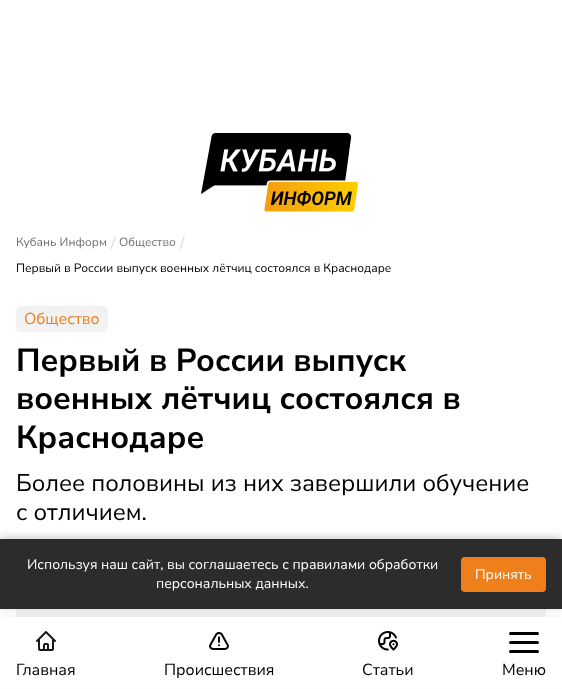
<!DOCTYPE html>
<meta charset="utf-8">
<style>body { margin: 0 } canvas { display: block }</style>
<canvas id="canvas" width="562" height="689"></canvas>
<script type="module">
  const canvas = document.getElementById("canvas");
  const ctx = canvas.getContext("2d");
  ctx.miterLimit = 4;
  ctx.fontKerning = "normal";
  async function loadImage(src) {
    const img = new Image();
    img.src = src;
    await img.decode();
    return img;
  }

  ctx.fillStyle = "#ffffff";
  ctx.fillRect(0, 0, 562, 689);
  ctx.font = "12px Nunito Sans";
  ctx.fillStyle = "#737373";
  ctx.fillText("Кубань Информ", 16, 246);
  ctx.font = "16px Nunito Sans";
  ctx.fillStyle = "#d8d8d8";
  ctx.fillText("/", 111, 248);
  ctx.font = "12px Nunito Sans";
  ctx.fillStyle = "#737373";
  ctx.fillText("Общество", 119, 246);
  ctx.font = "16px Nunito Sans";
  ctx.fillStyle = "#d8d8d8";
  ctx.fillText("/", 180, 248);
  ctx.font = "12px Nunito Sans";
  ctx.fillStyle = "#000000";
  ctx.fillText("Первый в России выпуск военных лётчиц состоялся в Краснодаре", 16, 272);
  ctx.fillStyle = "#f3f2f3";
  ctx.beginPath();
  ctx.roundRect(16, 306, 92, 26, 5);
  ctx.fill();
  ctx.font = "16px Nunito Sans";
  ctx.fillStyle = "#ee7f1a";
  ctx.fillText("Общество", 24, 324);
  ctx.font = "bold 32px Nunito Sans";
  ctx.fillStyle = "#000000";
  ctx.fillText("Первый в России выпуск", 16, 371);
  ctx.fillText("военных лётчиц состоялся в", 16, 409);
  ctx.fillText("Краснодаре", 16, 448);
  ctx.font = "24px Nunito Sans";
  ctx.fillText("Более половины из них завершили обучение", 16, 491);
  ctx.fillText("с отличием.", 16, 520);
  ctx.drawImage(await loadImage("img1.png"), 16, 609, 530, 8);
  ctx.fillStyle = "rgba(0, 0, 0, 0.2)";
  ctx.filter = "blur(4px)";
  ctx.beginPath();
  ctx.rect(0, 537, 562, 70);
  ctx.fill();
  ctx.filter = "none";
  ctx.fillStyle = "#2c2c2c";
  ctx.fillRect(0, 539, 562, 70);
  ctx.font = "14px Nunito Sans";
  ctx.fillStyle = "#ffffff";
  ctx.fillText("Используя наш сайт, вы соглашаетесь с правилами обработки", 27, 569);
  ctx.fillText("персональных данных.", 156, 588);
  ctx.fillStyle = "#ee7f1a";
  ctx.beginPath();
  ctx.roundRect(461, 557, 85, 35, 4);
  ctx.fill();
  ctx.fillStyle = "#ffffff";
  ctx.fillText("Принять", 475, 579);
  ctx.drawImage(await loadImage("img2.png"), 201, 133, 158, 79);
  ctx.fillStyle = "rgba(0, 0, 0, 0.04)";
  ctx.filter = "blur(2px)";
  ctx.beginPath();
  ctx.rect(0, 615, 562, 72);
  ctx.fill();
  ctx.filter = "none";
  ctx.fillStyle = "#ffffff";
  ctx.fillRect(0, 617, 562, 71);
  ctx.drawImage(await loadImage("img3.png"), 36, 631, 20, 20);
  ctx.font = "16px Nunito Sans";
  ctx.fillStyle = "#000000";
  ctx.fillText("Главная", 16, 675);
  ctx.drawImage(await loadImage("img4.png"), 209, 632, 20, 18);
  ctx.fillText("Происшествия", 164, 675);
  ctx.drawImage(await loadImage("img5.png"), 378, 631, 20, 20);
  ctx.fillText("Статьи", 362, 675);
  ctx.beginPath();
  ctx.roundRect(509, 641, 30, 3, 1.5);
  ctx.fill();
  ctx.beginPath();
  ctx.roundRect(509, 632, 30, 3, 1.5);
  ctx.fill();
  ctx.beginPath();
  ctx.roundRect(509, 650, 30, 3, 1.5);
  ctx.fill();
  ctx.fillText("Меню", 502, 675);
</script>
